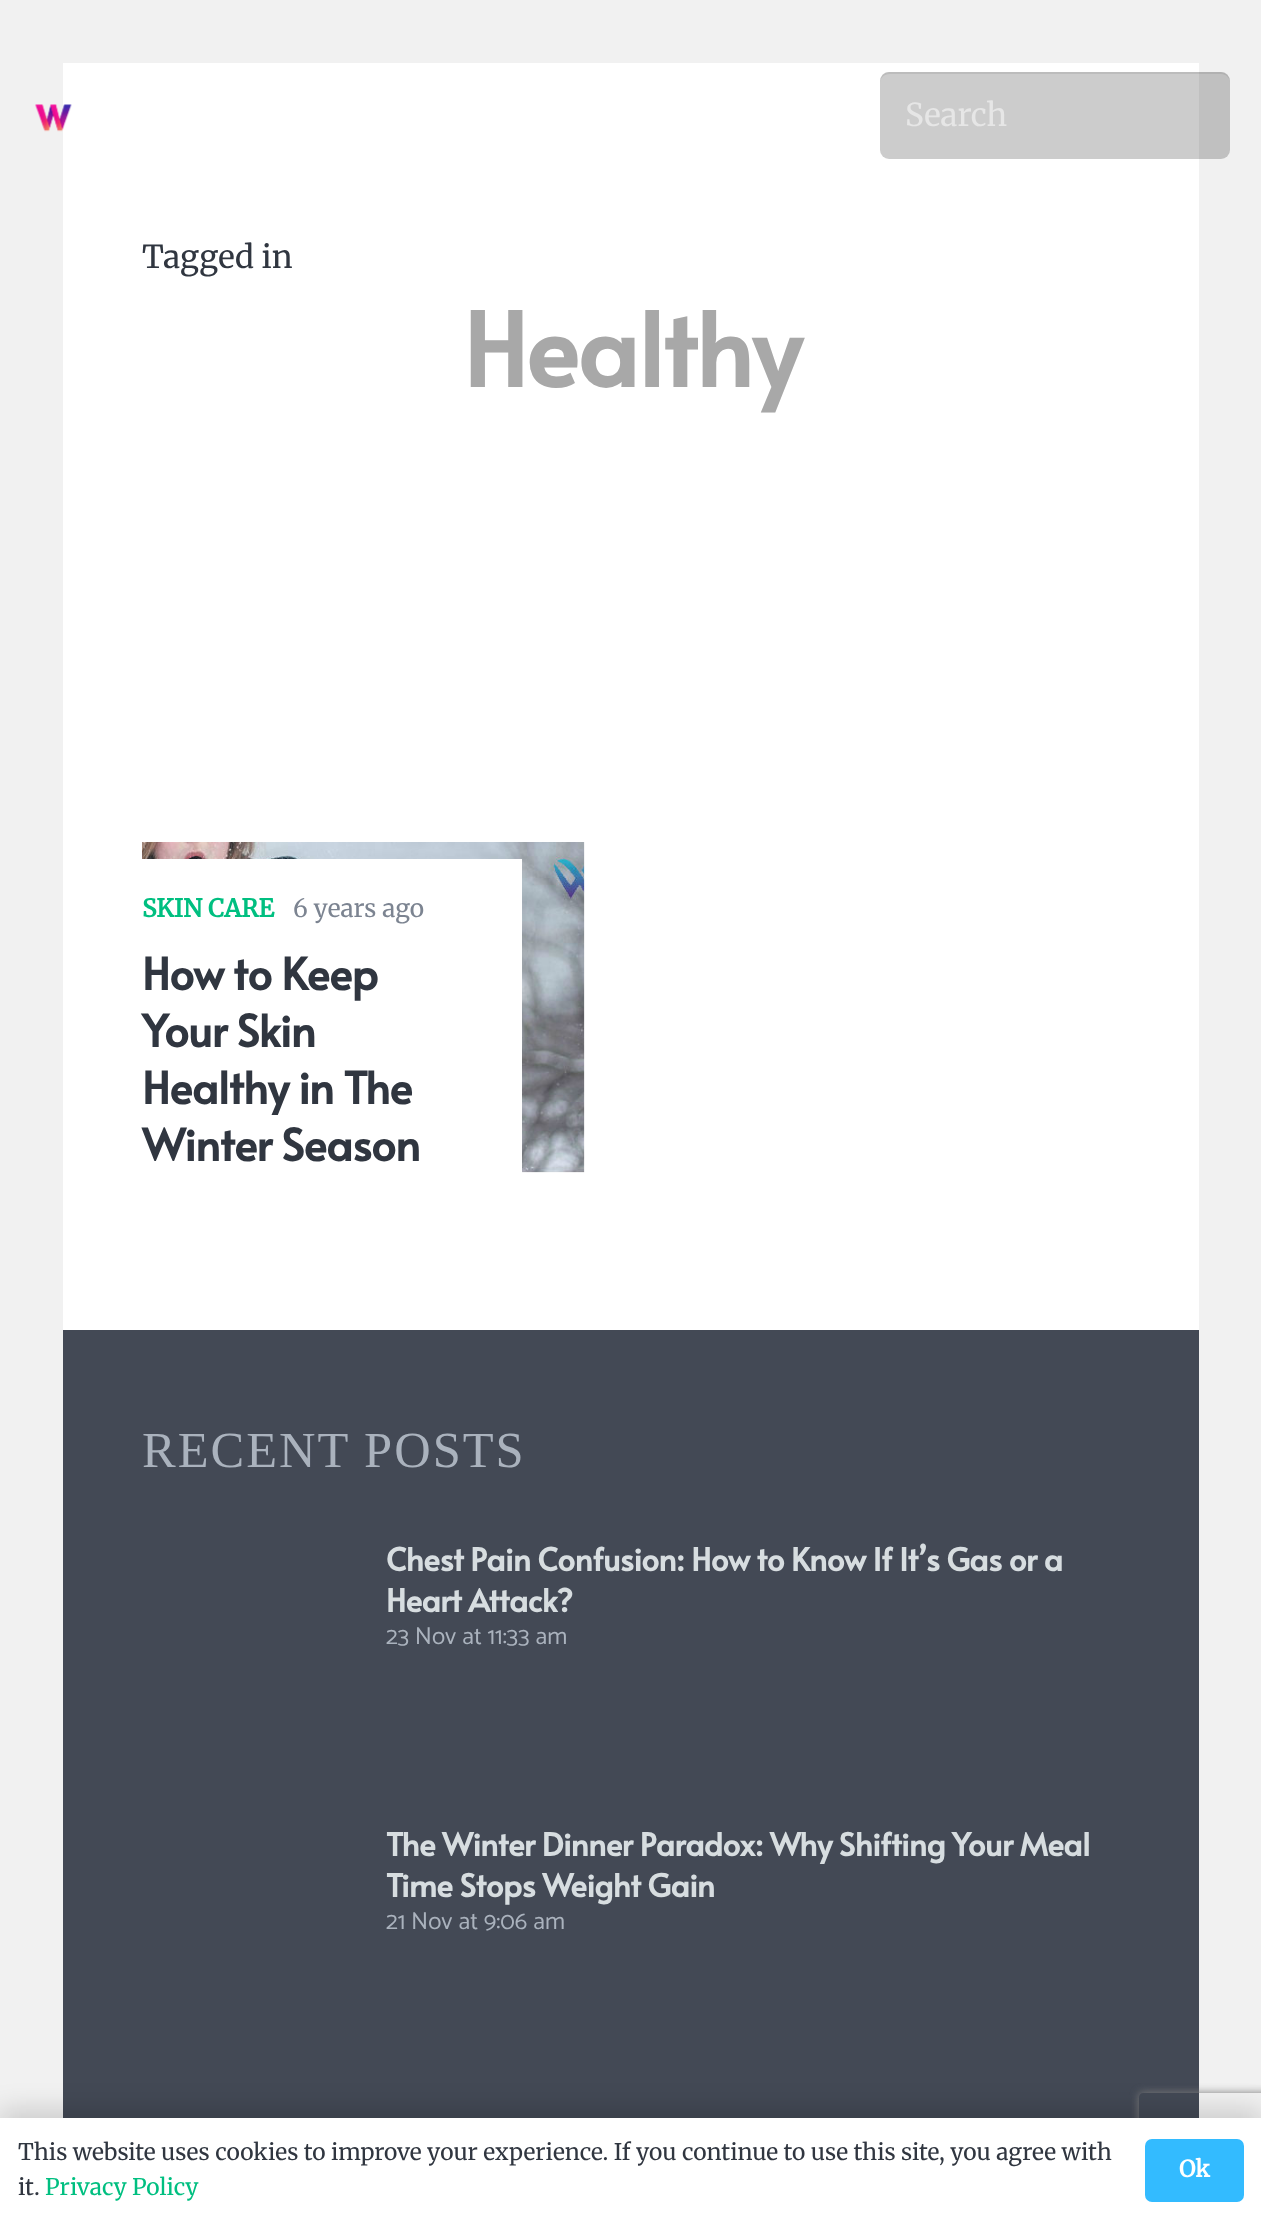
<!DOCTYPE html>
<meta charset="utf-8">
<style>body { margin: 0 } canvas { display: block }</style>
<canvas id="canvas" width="1261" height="2221"></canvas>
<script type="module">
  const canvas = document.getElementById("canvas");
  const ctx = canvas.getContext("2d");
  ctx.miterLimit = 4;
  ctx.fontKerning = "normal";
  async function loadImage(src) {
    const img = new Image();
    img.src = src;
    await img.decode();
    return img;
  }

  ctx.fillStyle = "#f1f1f1";
  ctx.fillRect(0, 0, 1261, 2221);
  ctx.fillStyle = "#ffffff";
  ctx.fillRect(63, 63, 1136, 1267);
  ctx.drawImage(await loadImage("img1.png"), 35, 104, 37, 28);
  ctx.fillStyle = "rgba(0, 0, 0, 0.2)";
  ctx.beginPath();
  ctx.roundRect(880, 72, 350, 87, 9);
  ctx.fill();
  ctx.fillStyle = "rgba(0, 0, 0, 0.08)";
  ctx.beginPath();
  ctx.moveTo(890, 74);
  ctx.lineTo(1221, 74);
  ctx.bezierCurveTo(1226, 74, 1230, 78, 1230, 83);
  ctx.bezierCurveTo(1230, 78, 1228, 73, 1223, 72);
  ctx.lineTo(887, 72);
  ctx.bezierCurveTo(882, 73, 880, 78, 880, 83);
  ctx.bezierCurveTo(880, 78, 884, 74, 890, 74);
  ctx.closePath();
  ctx.fill();
  ctx.font = "300 31.5px Merriweather";
  ctx.fillStyle = "#e6e6e6";
  ctx.fillText("Search", 905, 126);
  ctx.fillStyle = "#303640";
  ctx.fillText("Tagged in", 142, 268);
  ctx.letterSpacing = "-2px";
  ctx.font = "bold 101px Alata";
  ctx.fillStyle = "#a8a8a8";
  ctx.fillText("Healthy", 463, 387);
  ctx.drawImage(await loadImage("img2.png"), 142, 842, 443, 331);
  ctx.fillStyle = "#ffffff";
  ctx.fillRect(142, 859, 380, 314);
  ctx.letterSpacing = "0px";
  ctx.font = "bold 24.5px Merriweather";
  ctx.fillStyle = "#00bf80";
  ctx.fillText("SKIN CARE", 142, 917);
  ctx.font = "300 24.5px Merriweather";
  ctx.fillStyle = "#7c8491";
  ctx.fillText("6 years ago", 293, 917);
  ctx.letterSpacing = "-0.9px";
  ctx.font = "bold 44px Alata";
  ctx.fillStyle = "#303640";
  ctx.fillText("How to Keep", 142, 990);
  ctx.fillText("Your Skin", 142, 1047);
  ctx.fillText("Healthy in The", 142, 1104);
  ctx.fillText("Winter Season", 142, 1161);
  ctx.fillStyle = "#434955";
  ctx.fillRect(63, 1330, 1136, 788);
  ctx.letterSpacing = "2px";
  ctx.font = "50.5px Liberation Serif";
  ctx.fillStyle = "#aab2bd";
  ctx.fillText("RECENT POSTS", 142, 1467);
  ctx.letterSpacing = "-0.63px";
  ctx.font = "bold 31.5px Alata";
  ctx.fillStyle = "#d7dde0";
  ctx.fillText("Chest Pain Confusion: How to Know If It’s Gas or a", 386, 1571);
  ctx.fillText("Heart Attack?", 386, 1612);
  ctx.letterSpacing = "0px";
  ctx.font = "100 24.5px Catamaran";
  ctx.fillStyle = "#aab2bd";
  ctx.fillText("23 Nov at 11:33 am", 386, 1644);
  ctx.letterSpacing = "-0.63px";
  ctx.font = "bold 31.5px Alata";
  ctx.fillStyle = "#d7dde0";
  ctx.fillText("The Winter Dinner Paradox: Why Shifting Your Meal", 386, 1856);
  ctx.fillText("Time Stops Weight Gain", 386, 1897);
  ctx.letterSpacing = "0px";
  ctx.font = "100 24.5px Catamaran";
  ctx.fillStyle = "#aab2bd";
  ctx.fillText("21 Nov at 9:06 am", 386, 1929);
  ctx.save();
  ctx.beginPath();
  ctx.moveTo(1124, 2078);
  ctx.lineTo(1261, 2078);
  ctx.lineTo(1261, 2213);
  ctx.lineTo(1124, 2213);
  ctx.closePath();
  ctx.moveTo(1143, 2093);
  ctx.lineTo(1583, 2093);
  ctx.bezierCurveTo(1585, 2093, 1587, 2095, 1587, 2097);
  ctx.lineTo(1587, 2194);
  ctx.bezierCurveTo(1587, 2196, 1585, 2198, 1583, 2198);
  ctx.lineTo(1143, 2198);
  ctx.bezierCurveTo(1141, 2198, 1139, 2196, 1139, 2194);
  ctx.lineTo(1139, 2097);
  ctx.bezierCurveTo(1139, 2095, 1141, 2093, 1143, 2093);
  ctx.closePath();
  ctx.clip("evenodd");
  ctx.fillStyle = "#808080";
  ctx.filter = "blur(4.5px)";
  ctx.beginPath();
  ctx.roundRect(1139, 2093, 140, 105, 4);
  ctx.fill();
  ctx.filter = "none";
  ctx.restore();
  ctx.fillStyle = "rgba(0, 0, 0, 0.15)";
  ctx.filter = "blur(13px)";
  ctx.beginPath();
  ctx.rect(0, 2109, 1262, 105);
  ctx.fill();
  ctx.filter = "none";
  ctx.fillStyle = "#ffffff";
  ctx.fillRect(0, 2118, 1261, 103);
  ctx.font = "300 22.75px Merriweather";
  ctx.fillStyle = "#303640";
  ctx.fillText("This website uses cookies to improve your experience. If you continue to use this site, you agree with", 18, 2160);
  ctx.fillText("it.", 18, 2195);
  ctx.fillStyle = "#00bf80";
  ctx.fillText("Privacy Policy", 45, 2195);
  ctx.fillStyle = "#33bbff";
  ctx.beginPath();
  ctx.roundRect(1145, 2139, 99, 63, 7);
  ctx.fill();
  ctx.font = "bold 22.75px Merriweather";
  ctx.fillStyle = "#ffffff";
  ctx.fillText("Ok", 1179, 2177);
</script>
